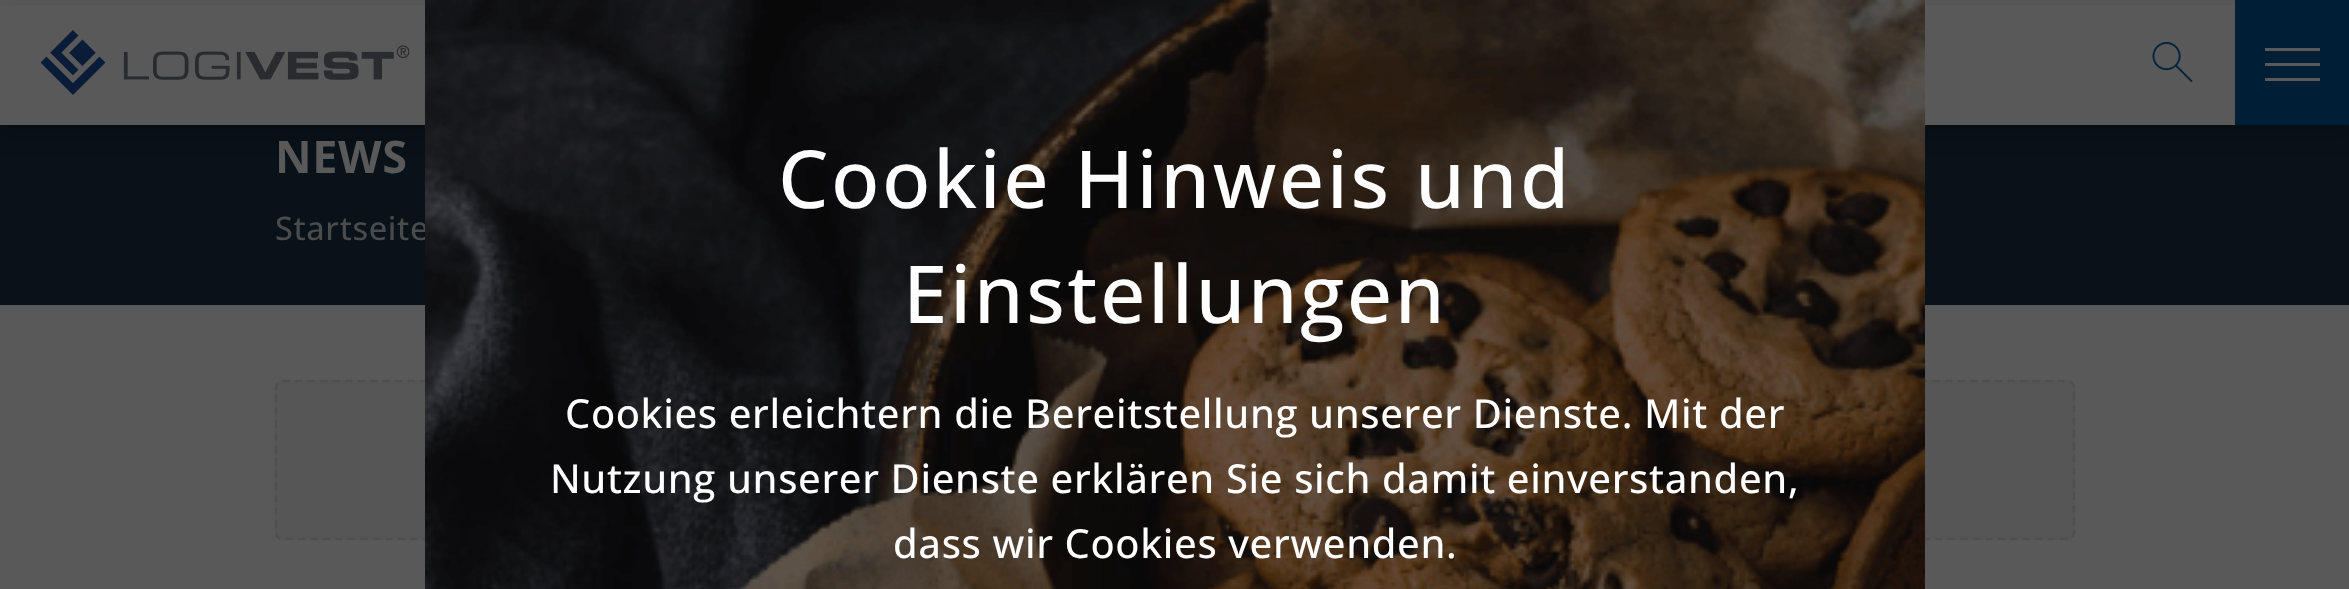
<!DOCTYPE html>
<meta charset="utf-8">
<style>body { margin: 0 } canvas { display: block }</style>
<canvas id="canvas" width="2349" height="589"></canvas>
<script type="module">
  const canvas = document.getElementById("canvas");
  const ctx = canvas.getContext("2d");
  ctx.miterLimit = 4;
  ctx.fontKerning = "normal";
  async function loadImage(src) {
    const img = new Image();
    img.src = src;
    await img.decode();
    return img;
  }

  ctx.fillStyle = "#595959";
  ctx.fillRect(0, 0, 2349, 589);
  ctx.fillStyle = "#091219";
  ctx.fillRect(0, 125, 2349, 180);
  ctx.fillStyle = "rgba(0, 0, 0, 0.15)";
  ctx.filter = "blur(9px)";
  ctx.beginPath();
  ctx.rect(0, 13, 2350, 125);
  ctx.fill();
  ctx.filter = "none";
  ctx.fillStyle = "#595959";
  ctx.fillRect(0, 5, 2235, 120);
  ctx.drawImage(await loadImage("img1.png"), 40, 30, 370, 65);
  ctx.drawImage(await loadImage("img2.png"), 2152, 42, 41, 40);
  ctx.fillStyle = "#011e37";
  ctx.fillRect(2235, 0, 114, 125);
  ctx.fillStyle = "#595959";
  ctx.fillRect(2265, 48, 55, 3);
  ctx.fillRect(2265, 63, 55, 3);
  ctx.fillRect(2265, 78, 55, 3);
  ctx.letterSpacing = "0.62px";
  ctx.font = "bold 45px Open Sans";
  ctx.fillText("NEWS", 275, 173);
  ctx.font = "500 32.5px Open Sans";
  ctx.fillStyle = "#494b4c";
  ctx.fillText("Startseite", 275, 240);
  ctx.fillStyle = "#565656";
  ctx.beginPath();
  ctx.roundRect(275, 380, 1800, 160, 8);
  ctx.fill();
  ctx.beginPath();
  ctx.moveTo(282.5, 381);
  ctx.lineTo(2067.5, 381);
  ctx.bezierCurveTo(2071, 381, 2074, 384, 2074, 387.5);
  ctx.lineTo(2074, 532.5);
  ctx.bezierCurveTo(2074, 536, 2071, 539, 2067.5, 539);
  ctx.lineTo(282.5, 539);
  ctx.bezierCurveTo(279, 539, 276, 536, 276, 532.5);
  ctx.lineTo(276, 387.5);
  ctx.bezierCurveTo(276, 384, 279, 381, 282.5, 381);
  ctx.closePath();
  ctx.strokeStyle = "#4f4f4f";
  ctx.lineWidth = 2.5;
  ctx.setLineDash([7.5, 5]);
  ctx.stroke();
  ctx.fillStyle = "#000000";
  ctx.fillRect(425, 0, 1500, 589);
  ctx.drawImage(await loadImage("img3.png"), 425, 0, 1500, 589);
  ctx.letterSpacing = "2.5px";
  ctx.font = "500 80px Open Sans";
  ctx.fillStyle = "#ffffff";
  ctx.fillText("Cookie Hinweis und", 778, 208);
  ctx.fillText("Einstellungen", 903, 323);
  ctx.letterSpacing = "0.62px";
  ctx.font = "500 40px Open Sans";
  ctx.fillText("Cookies erleichtern die Bereitstellung unserer Dienste. Mit der", 565, 428);
  ctx.fillText("Nutzung unserer Dienste erklären Sie sich damit einverstanden,", 550, 493);
  ctx.fillText("dass wir Cookies verwenden.", 893, 558);
</script>
